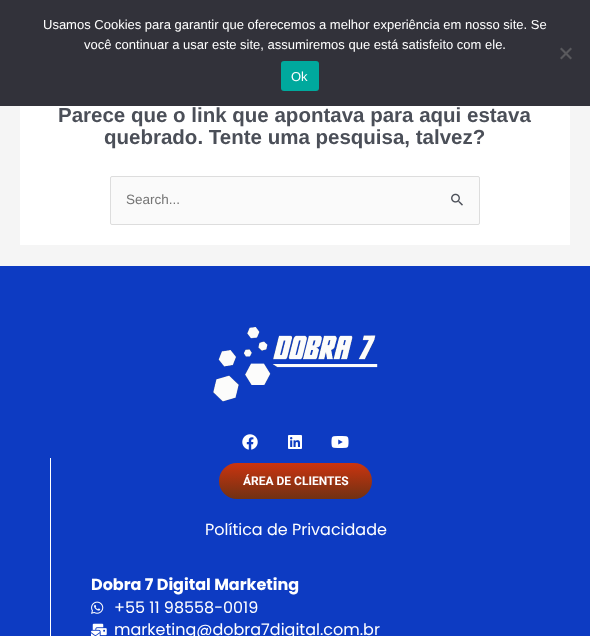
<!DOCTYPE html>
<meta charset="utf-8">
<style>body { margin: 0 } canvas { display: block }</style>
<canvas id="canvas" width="590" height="636"></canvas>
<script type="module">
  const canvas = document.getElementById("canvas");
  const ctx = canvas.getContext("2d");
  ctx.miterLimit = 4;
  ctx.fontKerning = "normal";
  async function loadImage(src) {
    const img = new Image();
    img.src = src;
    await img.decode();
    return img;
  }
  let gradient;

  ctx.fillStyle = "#f5f5f5";
  ctx.fillRect(0, 0, 590, 636);
  ctx.fillStyle = "#32323a";
  ctx.fillRect(0, 0, 590, 106);
  ctx.font = "13px Liberation Sans";
  ctx.fillStyle = "#ffffff";
  ctx.fillText("Usamos Cookies para garantir que oferecemos a melhor experiência em nosso site. Se", 43, 29);
  ctx.fillText("você continuar a usar este site, assumiremos que está satisfeito com ele.", 84, 49);
  ctx.fillStyle = "#59595d";
  ctx.beginPath();
  ctx.moveTo(570.5, 47.5);
  ctx.lineTo(572, 49);
  ctx.lineTo(561.5, 59.5);
  ctx.lineTo(560, 58);
  ctx.closePath();
  ctx.fill();
  ctx.beginPath();
  ctx.moveTo(560, 49);
  ctx.lineTo(561.5, 47.5);
  ctx.lineTo(572, 58);
  ctx.lineTo(570.5, 59.5);
  ctx.closePath();
  ctx.fill();
  ctx.fillStyle = "#00a99d";
  ctx.beginPath();
  ctx.roundRect(281, 61, 38, 30, 3);
  ctx.fill();
  ctx.fillStyle = "#ffffff";
  ctx.fillText("Ok", 291, 81);
  ctx.fillRect(20, 106, 550, 139);
  ctx.font = "bold 20.5px Liberation Sans";
  ctx.fillStyle = "#4b4f58";
  ctx.fillText("Parece que o link que apontava para aqui estava", 58, 122);
  ctx.fillText("quebrado. Tente uma pesquisa, talvez?", 104, 144);
  ctx.fillStyle = "#fafafa";
  ctx.beginPath();
  ctx.roundRect(110.5, 176.5, 369, 48, 1.5);
  ctx.fill();
  ctx.strokeStyle = "#dddddd";
  ctx.stroke();
  ctx.font = "13.5px Liberation Sans";
  ctx.fillStyle = "#757575";
  ctx.fillText("Search...", 126, 204);
  ctx.drawImage(await loadImage("img1.png"), 451, 193, 12, 13);
  ctx.fillStyle = "#0d3bc2";
  ctx.fillRect(0, 266, 590, 370);
  ctx.drawImage(await loadImage("img2.png"), 213, 327, 165, 75);
  ctx.drawImage(await loadImage("img3.png"), 242, 434, 16, 16);
  ctx.drawImage(await loadImage("img4.png"), 288, 435, 14, 14);
  ctx.drawImage(await loadImage("img5.png"), 331, 436, 18, 12);
  ctx.fillStyle = "#ffffff";
  ctx.fillRect(50, 458, 1, 178);
  gradient = ctx.createLinearGradient(296, 463, 296, 499);
  gradient.addColorStop(0, "#cb340f");
  gradient.addColorStop(1, "#703113");
  ctx.fillStyle = gradient;
  ctx.beginPath();
  ctx.roundRect(219, 463, 153, 36, 18);
  ctx.fill();
  ctx.font = "bold 12px Roboto";
  ctx.fillStyle = "#ffffff";
  ctx.fillText("ÁREA DE CLIENTES", 243, 485);
  ctx.font = "16px Poppins";
  ctx.fillText("Política de Privacidade", 205, 535);
  ctx.font = "bold 16px Poppins";
  ctx.fillText("Dobra 7 Digital Marketing", 91, 590);
  ctx.drawImage(await loadImage("img6.png"), 91, 601, 13, 13);
  ctx.font = "16px Poppins";
  ctx.fillText("+55 11 98558-0019", 114, 613);
  ctx.drawImage(await loadImage("img7.png"), 91, 623, 16, 13);
  ctx.fillText("marketing@dobra7digital.com.br", 114, 635);
</script>
